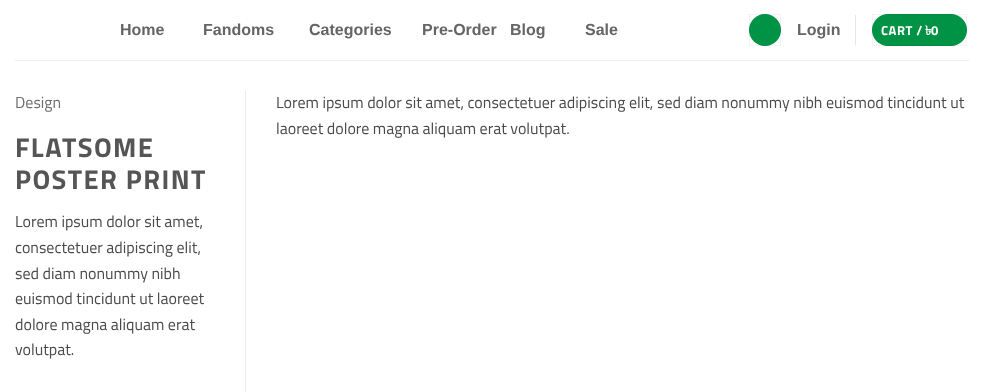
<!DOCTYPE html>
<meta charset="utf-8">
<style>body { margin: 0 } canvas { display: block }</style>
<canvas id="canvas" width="984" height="392"></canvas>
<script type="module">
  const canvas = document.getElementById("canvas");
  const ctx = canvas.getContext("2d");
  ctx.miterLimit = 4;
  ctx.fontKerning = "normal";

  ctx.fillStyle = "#ffffff";
  ctx.fillRect(0, 0, 984, 392);
  ctx.font = "bold 16px Liberation Sans";
  ctx.fillStyle = "#656565";
  ctx.fillText("Home", 120, 35);
  ctx.fillText("Fandoms", 203, 35);
  ctx.fillText("Categories", 309, 35);
  ctx.fillText("Pre-Order", 422, 35);
  ctx.fillText("Blog", 510, 35);
  ctx.fillText("Sale", 585, 35);
  ctx.fillStyle = "#009245";
  ctx.beginPath();
  ctx.arc(765, 30, 16, 0, Math.PI * 2);
  ctx.fill();
  ctx.strokeStyle = "rgba(0, 0, 0, 0.05)";
  ctx.strokeRect(749.5, 14.5, 31, 31);
  ctx.fillStyle = "#656565";
  ctx.fillText("Login", 797, 35);
  ctx.fillStyle = "#e6e6e6";
  ctx.fillRect(855, 15, 1, 30);
  ctx.fillStyle = "#009245";
  ctx.beginPath();
  ctx.roundRect(872, 14, 95, 32, 16);
  ctx.fill();
  ctx.strokeRect(872.5, 14.5, 94, 31);
  ctx.letterSpacing = "0.5px";
  ctx.font = "bold 13px Titillium Web";
  ctx.fillStyle = "#ffffff";
  ctx.fillText("CART /", 881, 35);
  ctx.font = "bold 13px Lohit Bengali";
  ctx.fillText("৳", 925, 35);
  ctx.font = "bold 13px Titillium Web";
  ctx.fillText("0", 931, 35);
  ctx.fillStyle = "#ededed";
  ctx.fillRect(15, 60, 954, 1);
  ctx.fillStyle = "#ececec";
  ctx.fillRect(245, 90, 1, 302);
  ctx.letterSpacing = "0px";
  ctx.font = "16px Titillium Web";
  ctx.fillStyle = "#6e6e6e";
  ctx.fillText("Design", 15, 108);
  ctx.letterSpacing = "1.4px";
  ctx.font = "bold 27.25px Titillium Web";
  ctx.fillStyle = "#555555";
  ctx.fillText("FLATSOME", 15, 157);
  ctx.fillText("POSTER PRINT", 15, 189);
  ctx.letterSpacing = "0px";
  ctx.font = "16px Titillium Web";
  ctx.fillStyle = "#4a4a4a";
  ctx.fillText("Lorem ipsum dolor sit amet,", 15, 227);
  ctx.fillText("consectetuer adipiscing elit,", 15, 253);
  ctx.fillText("sed diam nonummy nibh", 15, 279);
  ctx.fillText("euismod tincidunt ut laoreet", 15, 304);
  ctx.fillText("dolore magna aliquam erat", 15, 330);
  ctx.fillText("volutpat.", 15, 355);
  ctx.fillText("Lorem ipsum dolor sit amet, consectetuer adipiscing elit, sed diam nonummy nibh euismod tincidunt ut", 276, 108);
  ctx.fillText("laoreet dolore magna aliquam erat volutpat.", 276, 134);
</script>
